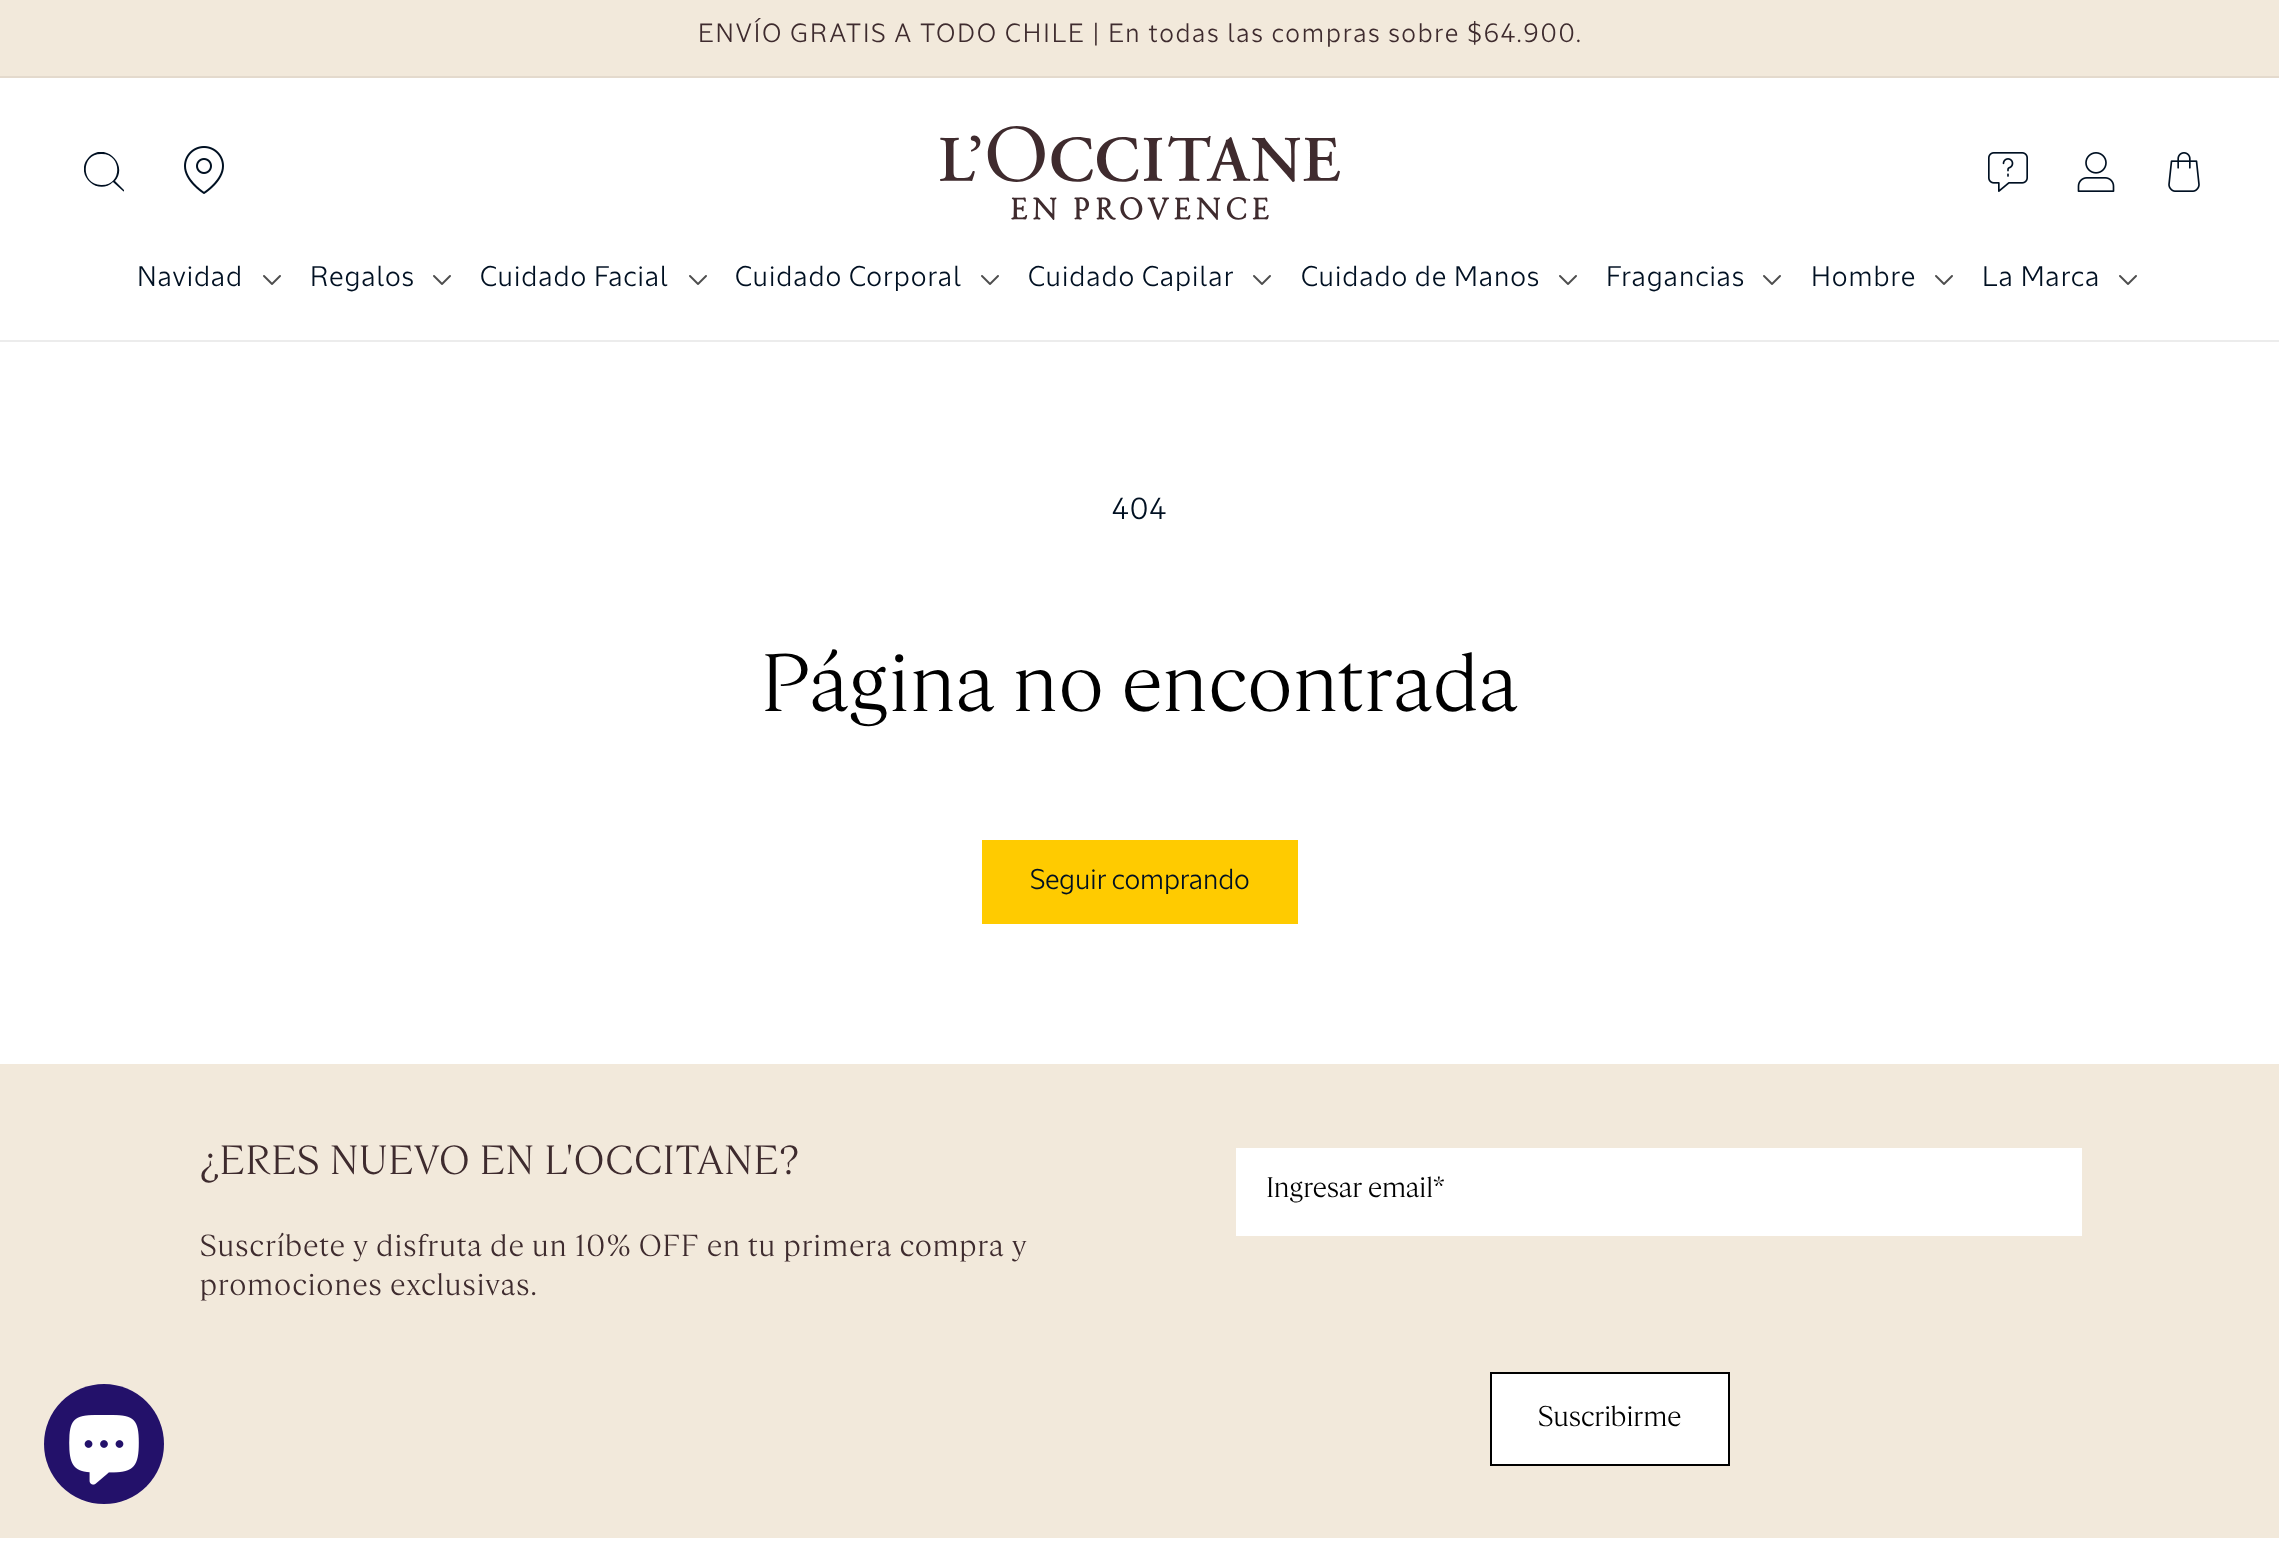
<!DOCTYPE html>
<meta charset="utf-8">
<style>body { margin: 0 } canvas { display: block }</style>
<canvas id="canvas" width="2279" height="1545"></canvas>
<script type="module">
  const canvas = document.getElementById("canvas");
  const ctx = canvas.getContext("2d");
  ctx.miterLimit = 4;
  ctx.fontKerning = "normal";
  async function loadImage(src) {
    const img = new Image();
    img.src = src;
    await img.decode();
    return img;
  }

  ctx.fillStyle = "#ffffff";
  ctx.fillRect(0, 0, 2279, 1545);
  ctx.fillStyle = "#f2e9db";
  ctx.fillRect(0, 0, 2279, 76);
  ctx.fillStyle = "#e4dacd";
  ctx.fillRect(0, 76, 2279, 2);
  ctx.letterSpacing = "2px";
  ctx.font = "26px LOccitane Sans";
  ctx.fillStyle = "#3e2b2e";
  ctx.fillText("ENVÍO GRATIS A TODO CHILE | En todas las compras sobre $64.900.", 698, 42);
  ctx.fillStyle = "#ececec";
  ctx.fillRect(0, 340, 2279, 2);
  ctx.save();
  ctx.beginPath();
  ctx.rect(84, 152, 40, 40);
  ctx.clip();
  ctx.fillStyle = "#001022";
  ctx.beginPath();
  ctx.moveTo(124, 190);
  ctx.lineTo(115, 181);
  ctx.bezierCurveTo(129, 165, 105, 141, 89, 157);
  ctx.bezierCurveTo(73, 174, 98, 197, 113, 182);
  ctx.lineTo(123, 191);
  ctx.bezierCurveTo(124, 192, 125, 191, 124, 190);
  ctx.closePath();
  ctx.moveTo(102, 185);
  ctx.bezierCurveTo(81, 186, 80, 154, 101, 154);
  ctx.bezierCurveTo(122, 153, 123, 185, 102, 185);
  ctx.closePath();
  ctx.fill();
  ctx.restore();
  ctx.drawImage(await loadImage("img1.png"), 184, 146, 40, 48);
  ctx.drawImage(await loadImage("img2.png"), 940, 126, 400, 94);
  ctx.drawImage(await loadImage("img3.png"), 1988, 152, 40, 40);
  ctx.drawImage(await loadImage("img4.png"), 2077, 152, 38, 40);
  ctx.drawImage(await loadImage("img5.png"), 2168, 152, 32, 40);
  ctx.letterSpacing = "1.2px";
  ctx.font = "28px LOccitane Sans";
  ctx.fillStyle = "#001022";
  ctx.fillText("Navidad", 137, 286);
  ctx.drawImage(await loadImage("img6.png"), 263, 275, 18, 10);
  ctx.fillText("Regalos", 310, 286);
  ctx.drawImage(await loadImage("img6.png"), 433, 275, 18, 10);
  ctx.fillText("Cuidado Facial", 480, 286);
  ctx.drawImage(await loadImage("img6.png"), 689, 275, 18, 10);
  ctx.fillText("Cuidado Corporal", 735, 286);
  ctx.drawImage(await loadImage("img6.png"), 981, 275, 18, 10);
  ctx.fillText("Cuidado Capilar", 1028, 286);
  ctx.drawImage(await loadImage("img6.png"), 1253, 275, 18, 10);
  ctx.fillText("Cuidado de Manos", 1301, 286);
  ctx.drawImage(await loadImage("img6.png"), 1559, 275, 18, 10);
  ctx.fillText("Fragancias", 1606, 286);
  ctx.drawImage(await loadImage("img6.png"), 1763, 275, 18, 10);
  ctx.fillText("Hombre", 1811, 286);
  ctx.drawImage(await loadImage("img6.png"), 1935, 275, 18, 10);
  ctx.fillText("La Marca", 1982, 286);
  ctx.drawImage(await loadImage("img6.png"), 2119, 275, 18, 10);
  ctx.font = "30px LOccitane Sans";
  ctx.fillText("404", 1112, 519);
  ctx.font = "80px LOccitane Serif";
  ctx.fillStyle = "#000000";
  ctx.fillText("Página no encontrada", 761, 711);
  ctx.fillStyle = "#ffcb00";
  ctx.fillRect(982, 840, 316, 84);
  ctx.letterSpacing = "0px";
  ctx.font = "28px LOccitane Sans";
  ctx.fillStyle = "#001022";
  ctx.fillText("Seguir comprando", 1030, 889);
  ctx.fillStyle = "#f2e9db";
  ctx.fillRect(0, 1064, 2279, 474);
  ctx.letterSpacing = "1.2px";
  ctx.font = "40px LOccitane Serif";
  ctx.fillStyle = "#3e2b2e";
  ctx.fillText("¿ERES NUEVO EN L'OCCITANE?", 200, 1174);
  ctx.font = "30px LOccitane Serif";
  ctx.fillText("Suscríbete y disfruta de un 10% OFF en tu primera compra y", 200, 1256);
  ctx.fillText("promociones exclusivas.", 200, 1295);
  ctx.fillStyle = "#ffffff";
  ctx.fillRect(1236, 1148, 846, 88);
  ctx.letterSpacing = "0px";
  ctx.font = "28px LOccitane Serif";
  ctx.fillStyle = "#000000";
  ctx.fillText("Ingresar email*", 1266, 1197);
  ctx.fillStyle = "#ffffff";
  ctx.beginPath();
  ctx.rect(1491, 1373, 238, 92);
  ctx.fill();
  ctx.strokeStyle = "#000000";
  ctx.lineWidth = 2;
  ctx.stroke();
  ctx.fillStyle = "#000000";
  ctx.fillText("Suscribirme", 1538, 1426);
  ctx.fillStyle = "#23116a";
  ctx.beginPath();
  ctx.arc(104, 1444, 60, 0, Math.PI * 2);
  ctx.fill();
  ctx.drawImage(await loadImage("img7.png"), 69, 1415, 70, 70);
</script>
